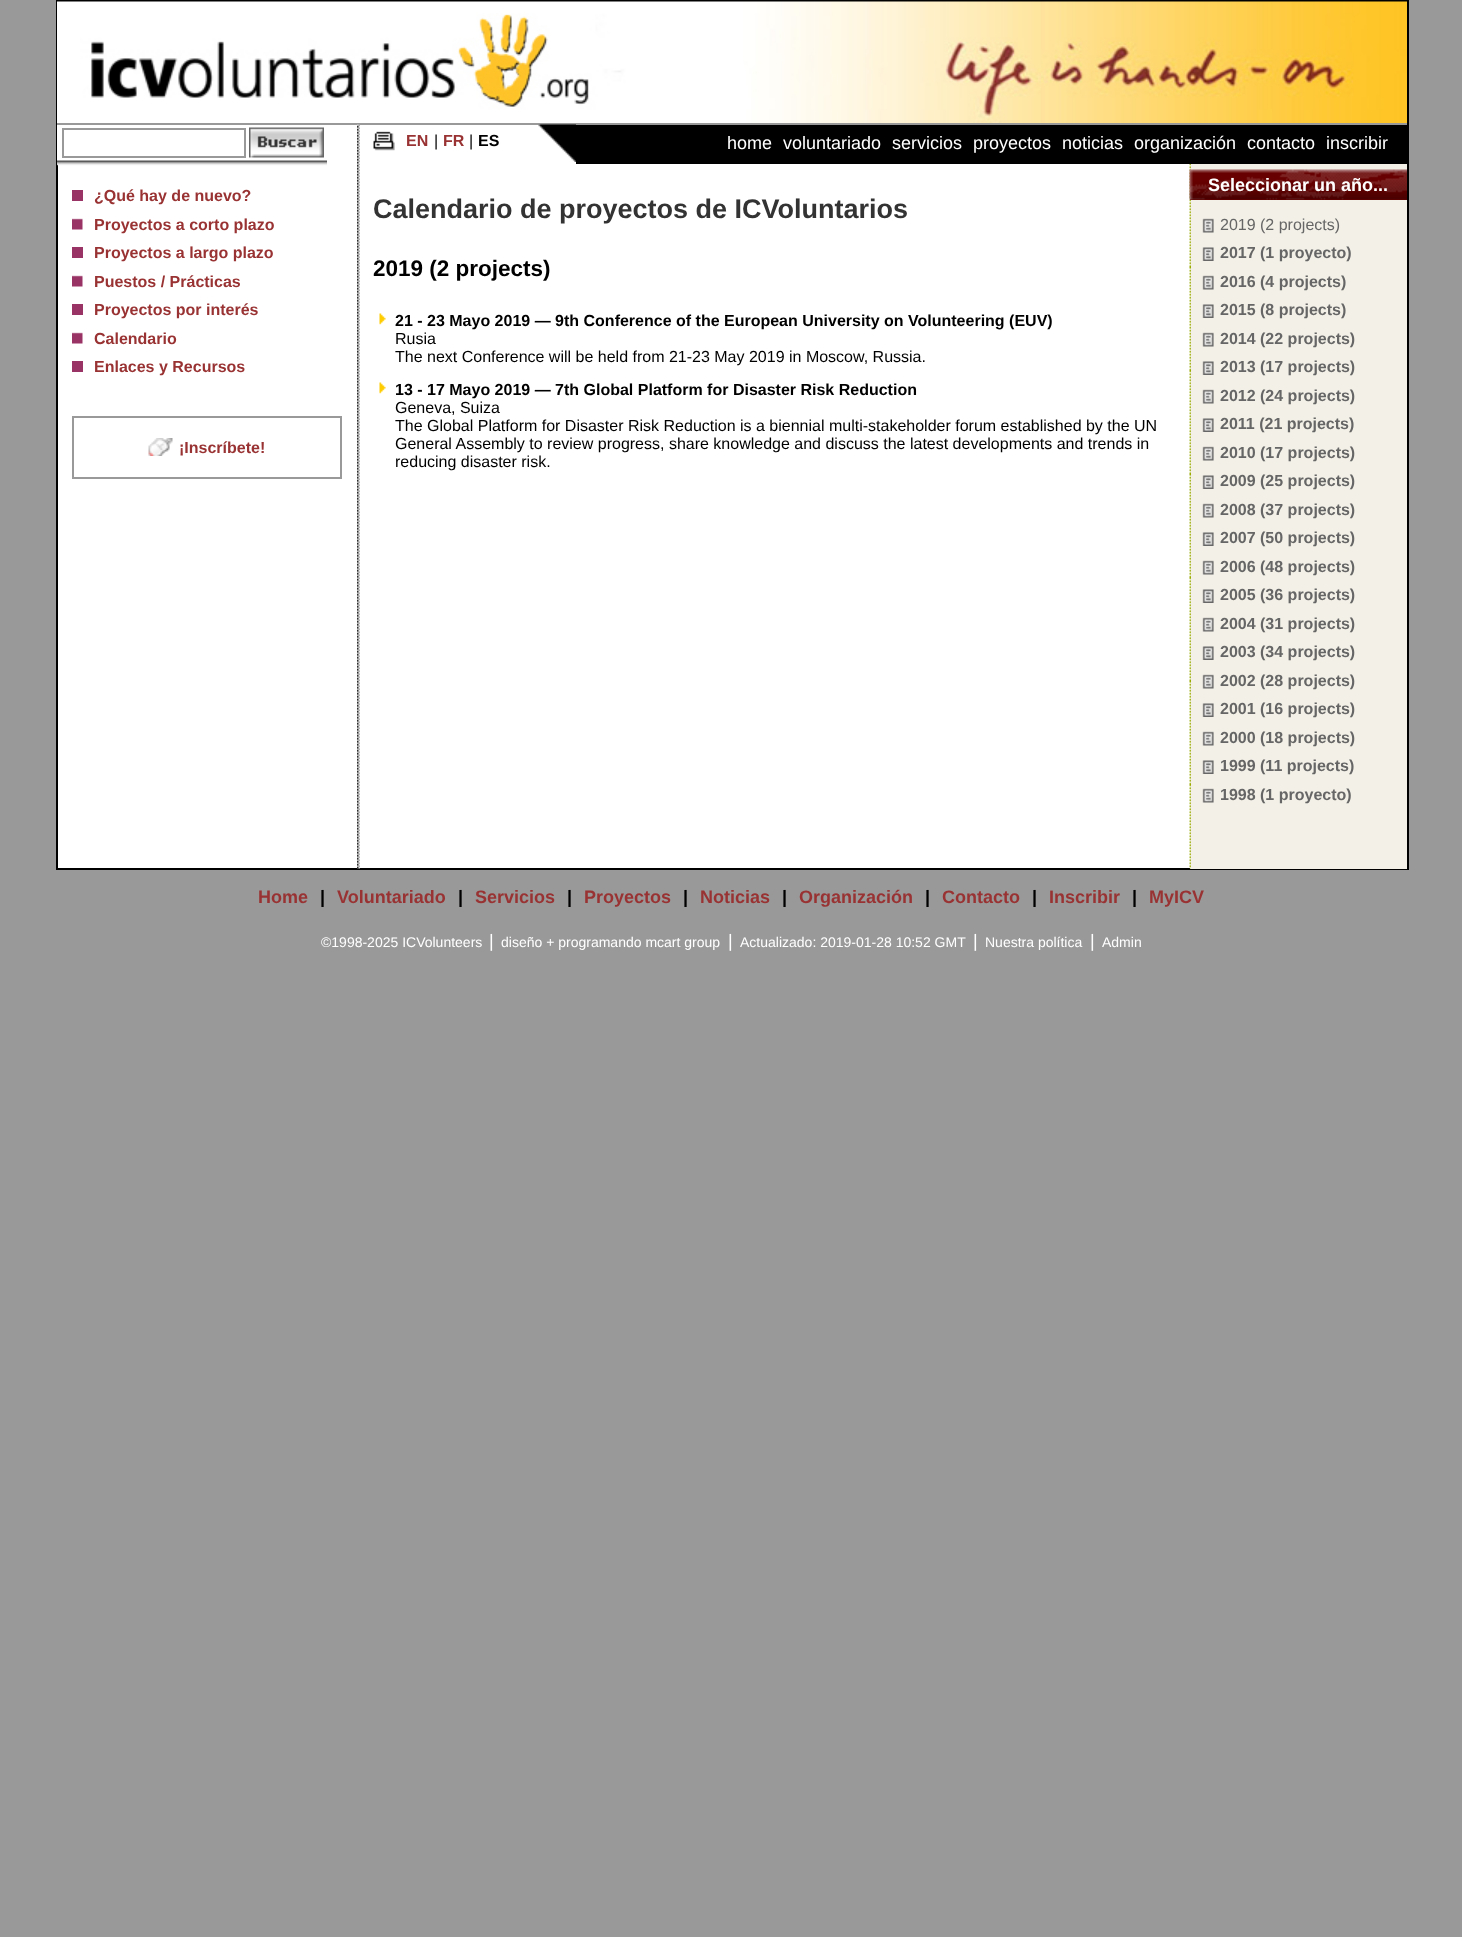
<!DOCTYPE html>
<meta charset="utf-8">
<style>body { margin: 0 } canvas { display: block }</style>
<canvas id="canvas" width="1462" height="1937"></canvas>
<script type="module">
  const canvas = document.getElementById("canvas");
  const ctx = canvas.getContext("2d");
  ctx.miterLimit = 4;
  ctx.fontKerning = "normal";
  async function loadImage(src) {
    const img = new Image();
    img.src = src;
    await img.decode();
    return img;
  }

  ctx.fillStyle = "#999999";
  ctx.fillRect(0, 0, 1462, 1937);
  ctx.fillStyle = "#ffffff";
  ctx.fillRect(58, 125, 1132, 743);
  ctx.strokeStyle = "#000000";
  ctx.lineWidth = 2;
  ctx.strokeRect(57, 1, 1351, 868);
  ctx.fillStyle = "#999999";
  ctx.fillRect(57, 123, 1, 2);
  ctx.drawImage(await loadImage("img1.png"), 57, 1, 1350, 122);
  ctx.drawImage(await loadImage("img2.png"), 357, 124, 3, 40);
  ctx.drawImage(await loadImage("img3.png"), 373, 131, 22, 20);
  ctx.font = "bold 16px Liberation Sans";
  ctx.fillStyle = "#993333";
  ctx.fillText("EN", 406, 146);
  ctx.font = "16px Liberation Sans";
  ctx.fillStyle = "#000000";
  ctx.fillText("|", 434, 146);
  ctx.font = "bold 16px Liberation Sans";
  ctx.fillStyle = "#993333";
  ctx.fillText("FR", 443, 146);
  ctx.font = "16px Liberation Sans";
  ctx.fillStyle = "#000000";
  ctx.fillText("|", 469, 146);
  ctx.font = "bold 16px Liberation Sans";
  ctx.fillText("ES", 478, 146);
  ctx.drawImage(await loadImage("img4.png"), 538, 124, 38, 38);
  ctx.fillRect(576, 125, 831, 39);
  ctx.font = "18px Liberation Sans";
  ctx.fillStyle = "#ffffff";
  ctx.fillText("home", 727, 149);
  ctx.fillText("voluntariado", 783, 149);
  ctx.fillText("servicios", 892, 149);
  ctx.fillText("proyectos", 973, 149);
  ctx.fillText("noticias", 1062, 149);
  ctx.fillText("organización", 1134, 149);
  ctx.fillText("contacto", 1247, 149);
  ctx.fillText("inscribir", 1326, 149);
  ctx.fillRect(57, 125, 1, 36);
  ctx.strokeStyle = "#999999";
  ctx.strokeRect(63, 129, 182, 28);
  ctx.drawImage(await loadImage("img5.png"), 249, 127, 75, 31);
  ctx.drawImage(await loadImage("img6.png"), 57, 160, 270, 6);
  ctx.fillStyle = "#993366";
  ctx.fillRect(72, 190, 11, 11);
  ctx.font = "bold 16px Liberation Sans";
  ctx.fillStyle = "#993333";
  ctx.fillText("¿Qué hay de nuevo?", 94, 201);
  ctx.drawImage(await loadImage("img7.png"), 72, 218, 11, 12);
  ctx.fillText("Proyectos a corto plazo", 94, 230);
  ctx.fillStyle = "#993366";
  ctx.fillRect(72, 247, 11, 11);
  ctx.fillStyle = "#993333";
  ctx.fillText("Proyectos a largo plazo", 94, 258);
  ctx.drawImage(await loadImage("img7.png"), 72, 275, 11, 12);
  ctx.fillText("Puestos / Prácticas", 94, 287);
  ctx.fillStyle = "#993366";
  ctx.fillRect(72, 304, 11, 11);
  ctx.fillStyle = "#993333";
  ctx.fillText("Proyectos por interés", 94, 315);
  ctx.drawImage(await loadImage("img7.png"), 72, 332, 11, 12);
  ctx.fillText("Calendario", 94, 344);
  ctx.fillStyle = "#993366";
  ctx.fillRect(72, 361, 11, 11);
  ctx.fillStyle = "#993333";
  ctx.fillText("Enlaces y Recursos", 94, 372);
  ctx.strokeRect(73, 417, 268, 61);
  ctx.drawImage(await loadImage("img8.png"), 148, 438, 25, 18);
  ctx.fillText("¡Inscríbete!", 179, 453);
  ctx.drawImage(await loadImage("img9.png"), 357, 163, 3, 706);
  ctx.font = "bold 27px Liberation Sans";
  ctx.fillStyle = "#333333";
  ctx.fillText("Calendario de proyectos de ICVoluntarios", 373, 218);
  ctx.font = "bold 22.5px Liberation Sans";
  ctx.fillStyle = "#000000";
  ctx.fillText("2019 (2 projects)", 373, 276);
  ctx.drawImage(await loadImage("img10.png"), 379, 313, 7, 12);
  ctx.font = "bold 16px Liberation Sans";
  ctx.fillText("21 - 23 Mayo 2019 — 9th Conference of the European University on Volunteering (EUV)", 395, 326);
  ctx.font = "16px Liberation Sans";
  ctx.fillText("Rusia", 395, 344);
  ctx.fillText("The next Conference will be held from 21-23 May 2019 in Moscow, Russia.", 395, 362);
  ctx.drawImage(await loadImage("img10.png"), 379, 382, 7, 12);
  ctx.font = "bold 16px Liberation Sans";
  ctx.fillText("13 - 17 Mayo 2019 — 7th Global Platform for Disaster Risk Reduction", 395, 395);
  ctx.font = "16px Liberation Sans";
  ctx.fillText("Geneva, Suiza", 395, 413);
  ctx.fillText("The Global Platform for Disaster Risk Reduction is a biennial multi-stakeholder forum established by the UN", 395, 431);
  ctx.fillText("General Assembly to review progress, share knowledge and discuss the latest developments and trends in", 395, 449);
  ctx.fillText("reducing disaster risk.", 395, 467);
  ctx.fillStyle = "#f2f0e7";
  ctx.fillRect(1190, 164, 217, 705);
  ctx.drawImage(await loadImage("img11.png"), 1189, 164, 2, 705);
  ctx.fillStyle = "#660000";
  ctx.fillRect(1190, 199, 217, 1);
  ctx.drawImage(await loadImage("img12.png"), 1189, 169, 218, 31);
  ctx.font = "bold 18px Liberation Sans";
  ctx.fillStyle = "#ffffff";
  ctx.fillText("Seleccionar un año...", 1208, 191);
  ctx.drawImage(await loadImage("img13.png"), 1202, 218, 12, 15);
  ctx.font = "16px Liberation Sans";
  ctx.fillStyle = "#666666";
  ctx.fillText("2019 (2 projects)", 1220, 230);
  ctx.drawImage(await loadImage("img14.png"), 1202, 247, 12, 14);
  ctx.font = "bold 16px Liberation Sans";
  ctx.fillText("2017 (1 proyecto)", 1220, 258);
  ctx.drawImage(await loadImage("img13.png"), 1202, 275, 12, 15);
  ctx.fillText("2016 (4 projects)", 1220, 287);
  ctx.drawImage(await loadImage("img14.png"), 1202, 304, 12, 14);
  ctx.fillText("2015 (8 projects)", 1220, 315);
  ctx.drawImage(await loadImage("img13.png"), 1202, 332, 12, 15);
  ctx.fillText("2014 (22 projects)", 1220, 344);
  ctx.drawImage(await loadImage("img14.png"), 1202, 361, 12, 14);
  ctx.fillText("2013 (17 projects)", 1220, 372);
  ctx.drawImage(await loadImage("img13.png"), 1202, 389, 12, 15);
  ctx.fillText("2012 (24 projects)", 1220, 401);
  ctx.drawImage(await loadImage("img14.png"), 1202, 418, 12, 14);
  ctx.fillText("2011 (21 projects)", 1220, 429);
  ctx.drawImage(await loadImage("img13.png"), 1202, 446, 12, 15);
  ctx.fillText("2010 (17 projects)", 1220, 458);
  ctx.drawImage(await loadImage("img14.png"), 1202, 475, 12, 14);
  ctx.fillText("2009 (25 projects)", 1220, 486);
  ctx.drawImage(await loadImage("img13.png"), 1202, 503, 12, 15);
  ctx.fillText("2008 (37 projects)", 1220, 515);
  ctx.drawImage(await loadImage("img14.png"), 1202, 532, 12, 14);
  ctx.fillText("2007 (50 projects)", 1220, 543);
  ctx.drawImage(await loadImage("img13.png"), 1202, 560, 12, 15);
  ctx.fillText("2006 (48 projects)", 1220, 572);
  ctx.drawImage(await loadImage("img14.png"), 1202, 589, 12, 14);
  ctx.fillText("2005 (36 projects)", 1220, 600);
  ctx.drawImage(await loadImage("img13.png"), 1202, 617, 12, 15);
  ctx.fillText("2004 (31 projects)", 1220, 629);
  ctx.drawImage(await loadImage("img14.png"), 1202, 646, 12, 14);
  ctx.fillText("2003 (34 projects)", 1220, 657);
  ctx.drawImage(await loadImage("img13.png"), 1202, 674, 12, 15);
  ctx.fillText("2002 (28 projects)", 1220, 686);
  ctx.drawImage(await loadImage("img14.png"), 1202, 703, 12, 14);
  ctx.fillText("2001 (16 projects)", 1220, 714);
  ctx.drawImage(await loadImage("img13.png"), 1202, 731, 12, 15);
  ctx.fillText("2000 (18 projects)", 1220, 743);
  ctx.drawImage(await loadImage("img14.png"), 1202, 760, 12, 14);
  ctx.fillText("1999 (11 projects)", 1220, 771);
  ctx.drawImage(await loadImage("img13.png"), 1202, 788, 12, 15);
  ctx.fillText("1998 (1 proyecto)", 1220, 800);
  ctx.font = "bold 18px Liberation Sans";
  ctx.fillStyle = "#993333";
  ctx.fillText("Home", 258, 903);
  ctx.fillStyle = "#000000";
  ctx.fillText("|", 320, 903);
  ctx.fillStyle = "#993333";
  ctx.fillText("Voluntariado", 337, 903);
  ctx.fillStyle = "#000000";
  ctx.fillText("|", 458, 903);
  ctx.fillStyle = "#993333";
  ctx.fillText("Servicios", 475, 903);
  ctx.fillStyle = "#000000";
  ctx.fillText("|", 567, 903);
  ctx.fillStyle = "#993333";
  ctx.fillText("Proyectos", 584, 903);
  ctx.fillStyle = "#000000";
  ctx.fillText("|", 683, 903);
  ctx.fillStyle = "#993333";
  ctx.fillText("Noticias", 700, 903);
  ctx.fillStyle = "#000000";
  ctx.fillText("|", 782, 903);
  ctx.fillStyle = "#993333";
  ctx.fillText("Organización", 799, 903);
  ctx.fillStyle = "#000000";
  ctx.fillText("|", 925, 903);
  ctx.fillStyle = "#993333";
  ctx.fillText("Contacto", 942, 903);
  ctx.fillStyle = "#000000";
  ctx.fillText("|", 1032, 903);
  ctx.fillStyle = "#993333";
  ctx.fillText("Inscribir", 1049, 903);
  ctx.fillStyle = "#000000";
  ctx.fillText("|", 1132, 903);
  ctx.fillStyle = "#993333";
  ctx.fillText("MyICV", 1149, 903);
  ctx.font = "14px Liberation Sans";
  ctx.fillStyle = "#ffffff";
  ctx.fillText("©1998-2025 ICVolunteers", 321, 947);
  ctx.font = "18px Liberation Sans";
  ctx.fillText("|", 489, 947);
  ctx.font = "14px Liberation Sans";
  ctx.fillText("diseño + programando mcart group", 501, 947);
  ctx.font = "18px Liberation Sans";
  ctx.fillText("|", 728, 947);
  ctx.font = "14px Liberation Sans";
  ctx.fillText("Actualizado: 2019-01-28 10:52 GMT", 740, 947);
  ctx.font = "18px Liberation Sans";
  ctx.fillText("|", 973, 947);
  ctx.font = "14px Liberation Sans";
  ctx.fillText("Nuestra política", 985, 947);
  ctx.font = "18px Liberation Sans";
  ctx.fillText("|", 1090, 947);
  ctx.font = "14px Liberation Sans";
  ctx.fillText("Admin", 1102, 947);
</script>
